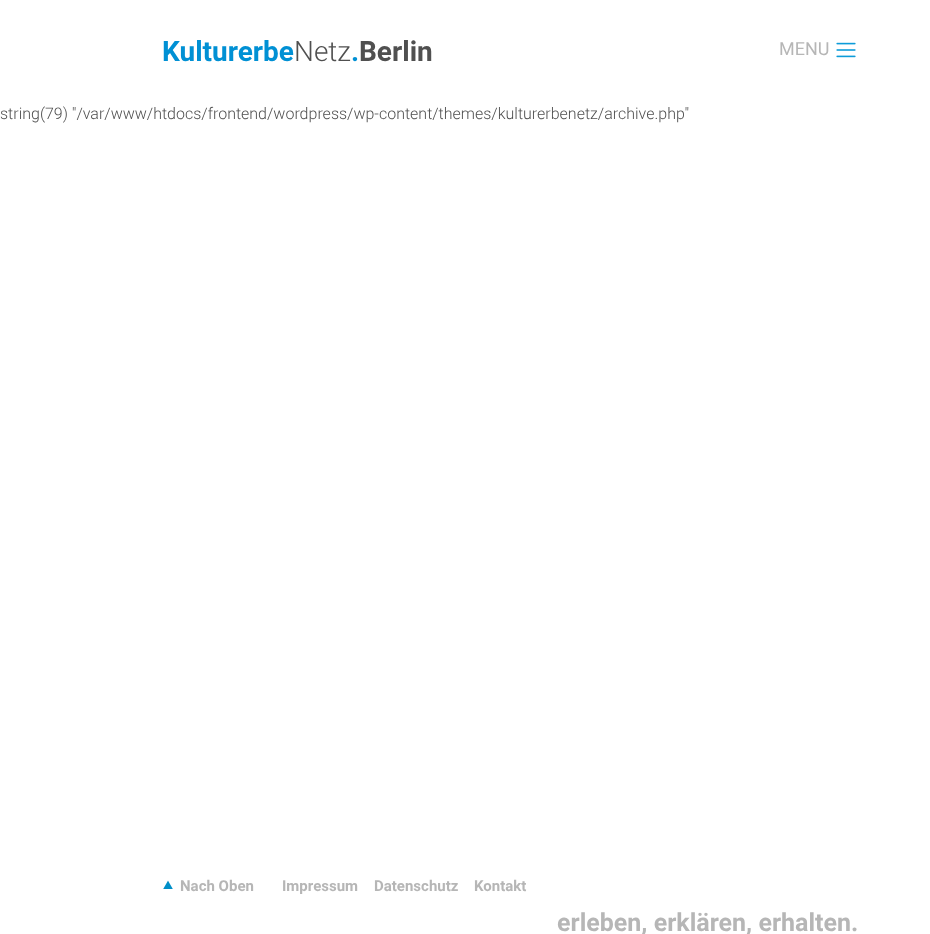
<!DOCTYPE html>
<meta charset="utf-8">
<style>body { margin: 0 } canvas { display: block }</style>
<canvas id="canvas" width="930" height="934"></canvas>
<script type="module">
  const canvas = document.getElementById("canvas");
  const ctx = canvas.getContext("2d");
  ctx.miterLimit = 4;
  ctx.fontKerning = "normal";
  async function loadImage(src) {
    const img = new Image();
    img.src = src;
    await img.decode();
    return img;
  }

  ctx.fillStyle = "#ffffff";
  ctx.fillRect(0, 0, 930, 934);
  ctx.font = "bold 28px Roboto";
  ctx.fillStyle = "#0090d4";
  ctx.fillText("Kulturerbe", 162, 61);
  ctx.font = "300 28px Roboto";
  ctx.fillStyle = "#505050";
  ctx.fillText("Netz", 294, 61);
  ctx.font = "bold 28px Roboto";
  ctx.fillStyle = "#0090d4";
  ctx.fillText(".", 351, 61);
  ctx.fillStyle = "#505050";
  ctx.fillText("Berlin", 359, 61);
  ctx.font = "18px Roboto";
  ctx.fillStyle = "#b6b6b6";
  ctx.fillText("MENU", 779, 55);
  ctx.drawImage(await loadImage("img1.png"), 836, 42, 20, 16);
  ctx.font = "300 16px Roboto";
  ctx.fillStyle = "#505050";
  ctx.fillText("string(79) \"/var/www/htdocs/frontend/wordpress/wp-content/themes/kulturerbenetz/archive.php\"", 0, 119);
  ctx.drawImage(await loadImage("img2.png"), 163, 880, 10, 9);
  ctx.font = "bold 15px Roboto";
  ctx.fillStyle = "#b6b6b6";
  ctx.fillText("Nach Oben", 180, 891);
  ctx.fillText("Impressum", 282, 891);
  ctx.fillText("Datenschutz", 374, 891);
  ctx.fillText("Kontakt", 474, 891);
  ctx.font = "bold 25px Roboto";
  ctx.fillText("erleben, erklären, erhalten.", 557, 931);
</script>
